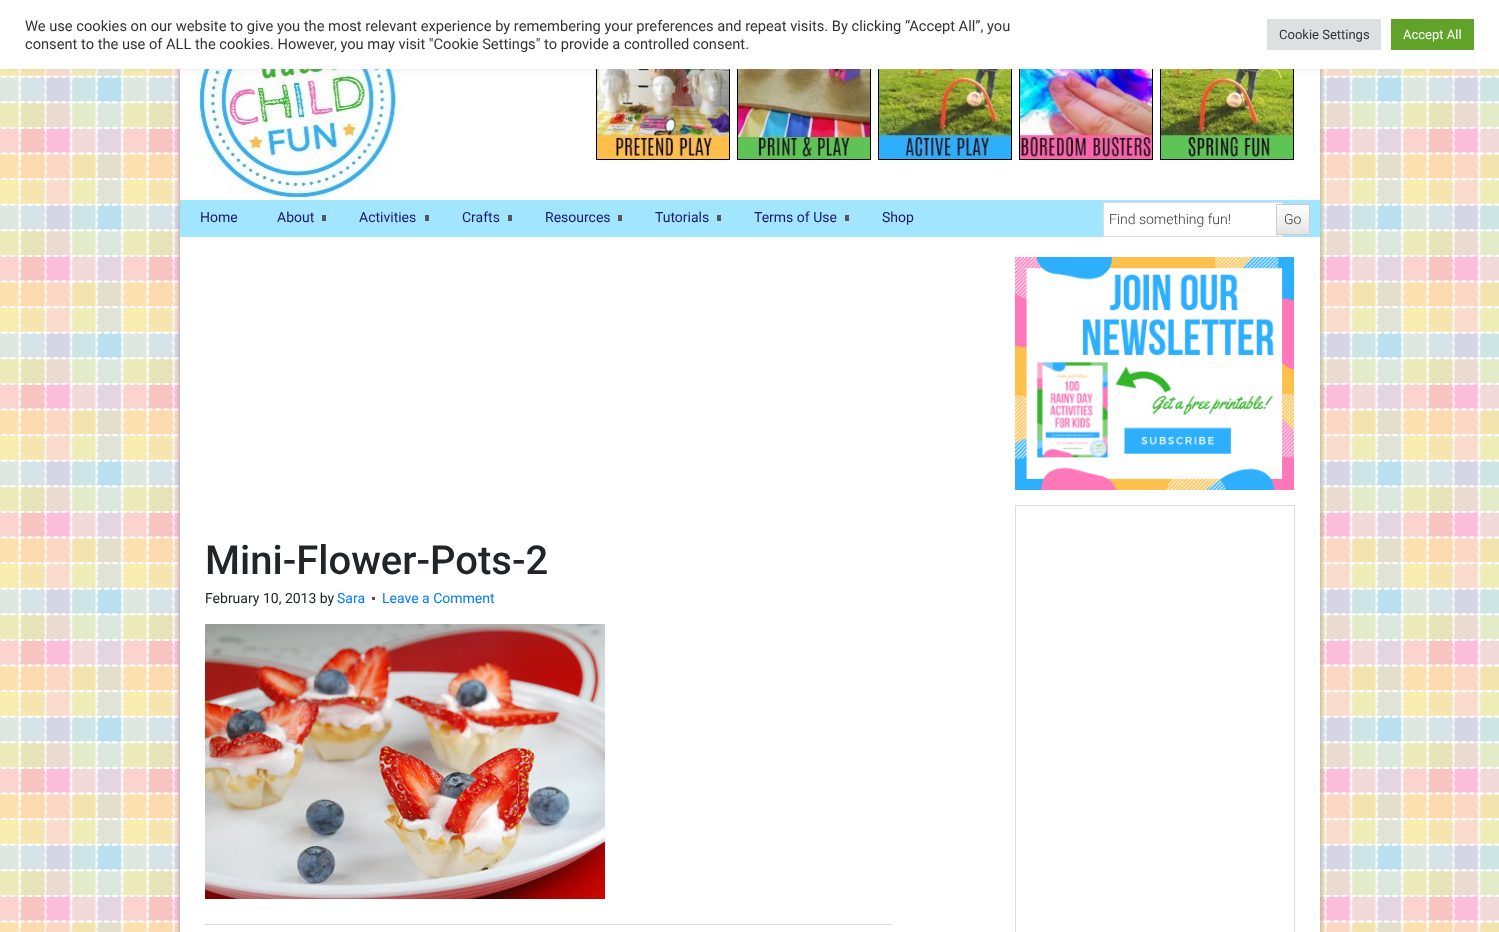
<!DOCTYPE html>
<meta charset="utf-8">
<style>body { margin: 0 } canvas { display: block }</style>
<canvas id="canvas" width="1499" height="932"></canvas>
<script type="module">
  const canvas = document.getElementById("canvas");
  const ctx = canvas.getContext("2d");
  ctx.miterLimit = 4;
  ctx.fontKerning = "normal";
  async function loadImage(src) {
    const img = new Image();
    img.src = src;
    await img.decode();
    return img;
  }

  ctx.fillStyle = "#ffffff";
  ctx.fillRect(0, 0, 1499, 932);
  ctx.drawImage(await loadImage("img1.png"), 0, 69, 1499, 863);
  ctx.fillStyle = "#999999";
  ctx.filter = "blur(2.5px)";
  ctx.beginPath();
  ctx.rect(180, 0, 1140, 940);
  ctx.fill();
  ctx.filter = "none";
  ctx.fillStyle = "#ffffff";
  ctx.fillRect(180, 69, 1140, 863);
  ctx.drawImage(await loadImage("img2.png"), 196, 69, 208, 131);
  ctx.strokeStyle = "#000000";
  ctx.strokeRect(596.5, 26.5, 133, 133);
  ctx.drawImage(await loadImage("img3.png"), 597, 69, 132, 90);
  ctx.strokeRect(737.5, 26.5, 133, 133);
  ctx.drawImage(await loadImage("img4.png"), 738, 69, 132, 90);
  ctx.strokeRect(878.5, 26.5, 133, 133);
  ctx.drawImage(await loadImage("img5.png"), 879, 69, 132, 90);
  ctx.strokeRect(1019.5, 26.5, 133, 133);
  ctx.drawImage(await loadImage("img6.png"), 1020, 69, 132, 90);
  ctx.strokeRect(1160.5, 26.5, 133, 133);
  ctx.drawImage(await loadImage("img7.png"), 1161, 69, 132, 90);
  ctx.fillStyle = "rgba(172, 171, 171, 0.3)";
  ctx.filter = "blur(5px)";
  ctx.beginPath();
  ctx.rect(0, -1, 1499, 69);
  ctx.fill();
  ctx.filter = "none";
  ctx.fillStyle = "#ffffff";
  ctx.fillRect(0, 0, 1499, 69);
  ctx.font = "14.67px Roboto";
  ctx.fillStyle = "#333333";
  ctx.fillText("We use cookies on our website to give you the most relevant experience by remembering your preferences and repeat visits. By clicking “Accept All”, you", 25, 31);
  ctx.fillText("consent to the use of ALL the cookies. However, you may visit \"Cookie Settings\" to provide a controlled consent.", 25, 49);
  ctx.fillStyle = "#dedfe0";
  ctx.fillRect(1267, 19, 114, 31);
  ctx.font = "13px Roboto";
  ctx.fillStyle = "#333333";
  ctx.fillText("Cookie Settings", 1279, 39);
  ctx.fillStyle = "#61a229";
  ctx.fillRect(1391, 19, 83, 31);
  ctx.fillStyle = "#ffffff";
  ctx.fillText("Accept All", 1403, 39);
  ctx.fillStyle = "#a2e5fe";
  ctx.fillRect(180, 200, 1140, 37);
  ctx.font = "14px Roboto";
  ctx.fillStyle = "#191970";
  ctx.fillText("Home", 200, 222);
  ctx.fillText("About", 277, 222);
  ctx.fillStyle = "#555555";
  ctx.fillRect(322, 215, 4, 6);
  ctx.fillStyle = "#191970";
  ctx.fillText("Activities", 359, 222);
  ctx.fillStyle = "#555555";
  ctx.fillRect(425, 215, 4, 6);
  ctx.fillStyle = "#191970";
  ctx.fillText("Crafts", 462, 222);
  ctx.fillStyle = "#555555";
  ctx.fillRect(508, 215, 4, 6);
  ctx.fillStyle = "#191970";
  ctx.fillText("Resources", 545, 222);
  ctx.fillStyle = "#555555";
  ctx.fillRect(618, 215, 4, 6);
  ctx.fillStyle = "#191970";
  ctx.fillText("Tutorials", 655, 222);
  ctx.fillStyle = "#555555";
  ctx.fillRect(717, 215, 4, 6);
  ctx.fillStyle = "#191970";
  ctx.fillText("Terms of Use", 754, 222);
  ctx.fillStyle = "#555555";
  ctx.fillRect(845, 215, 4, 6);
  ctx.fillStyle = "#191970";
  ctx.fillText("Shop", 882, 222);
  ctx.fillStyle = "#ffffff";
  ctx.beginPath();
  ctx.rect(1103.5, 202.5, 179, 34);
  ctx.fill();
  ctx.strokeStyle = "#dddddd";
  ctx.stroke();
  ctx.font = "300 14px Roboto";
  ctx.fillStyle = "#333333";
  ctx.fillText("Find something fun!", 1109, 224);
  ctx.drawImage(await loadImage("img8.png"), 1277, 205, 32, 29);
  ctx.strokeStyle = "#cccccc";
  ctx.strokeRect(1276.5, 204.5, 33, 30);
  ctx.fillText("Go", 1284, 224);
  ctx.font = "500 40px Roboto";
  ctx.fillStyle = "#212529";
  ctx.fillText("Mini-Flower-Pots-2", 205, 574);
  ctx.font = "14px Roboto";
  ctx.fillText("February 10, 2013 by", 205, 603);
  ctx.fillStyle = "#007bff";
  ctx.fillText("Sara", 337, 603);
  ctx.fillText("Leave a Comment", 382, 603);
  ctx.fillStyle = "#555555";
  ctx.fillRect(372, 597, 3, 3);
  ctx.drawImage(await loadImage("img9.png"), 205, 624, 400, 275);
  ctx.fillStyle = "#dddddd";
  ctx.fillRect(205, 924, 688, 1);
  ctx.drawImage(await loadImage("img10.png"), 1015, 257, 279, 233);
  ctx.strokeStyle = "#dddddd";
  ctx.strokeRect(1015.5, 505.5, 279, 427);
</script>
